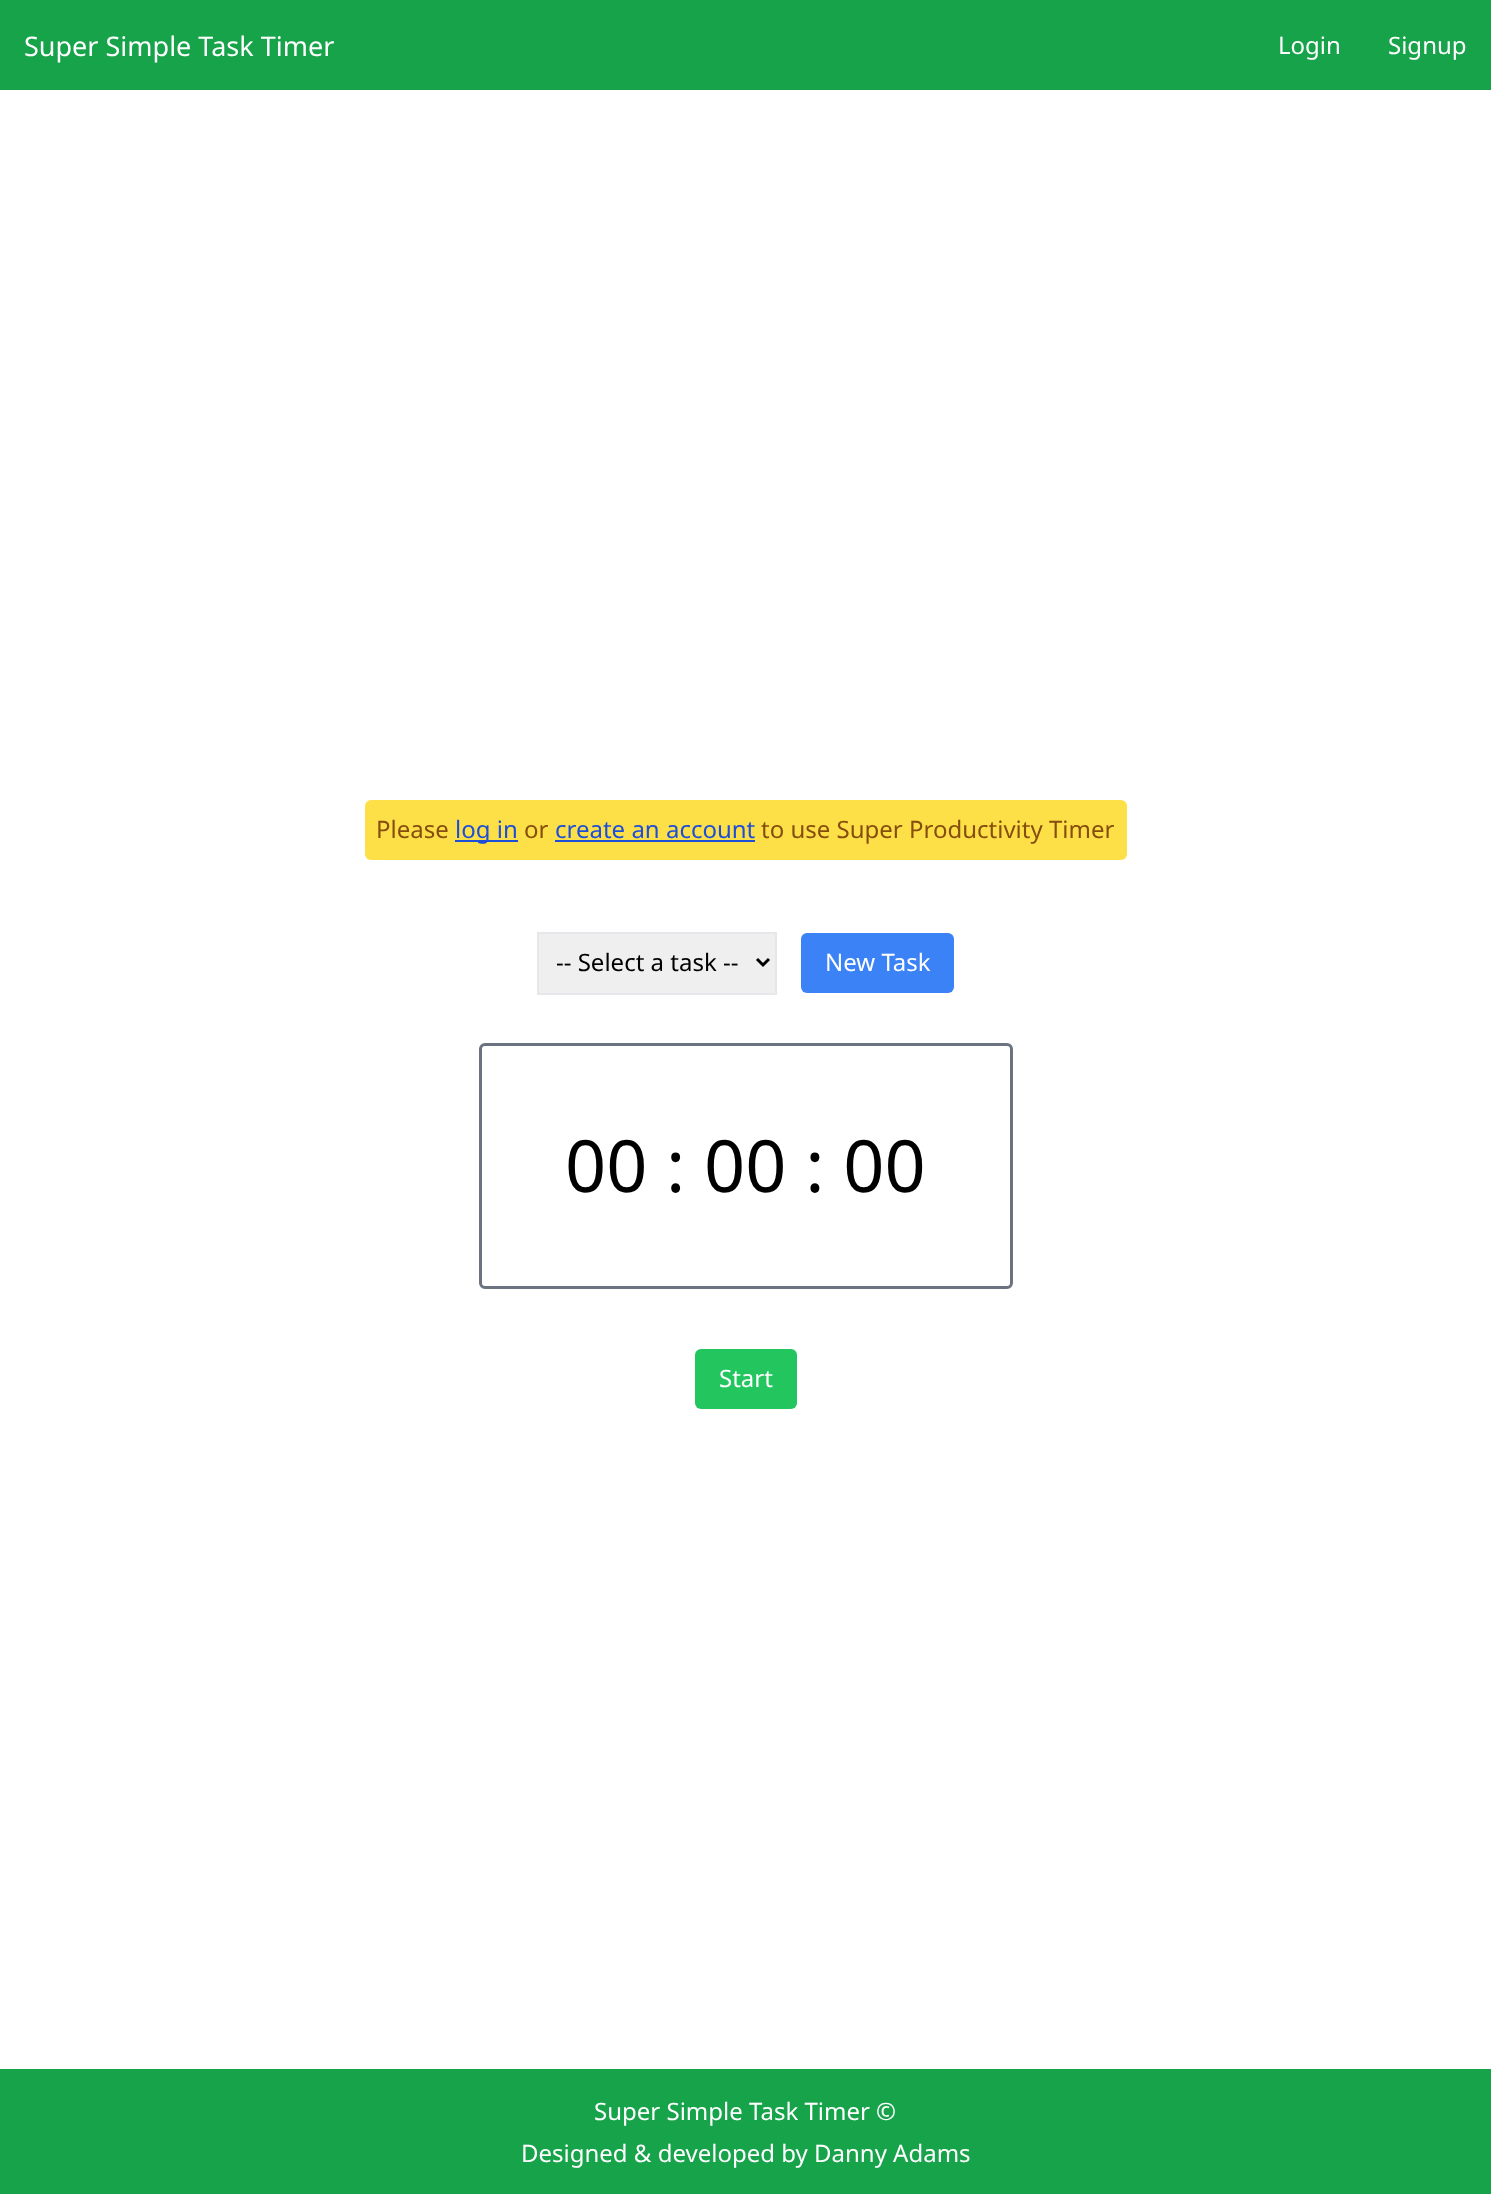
<!DOCTYPE html>
<meta charset="utf-8">
<style>body { margin: 0 } canvas { display: block }</style>
<canvas id="canvas" width="1491" height="2194"></canvas>
<script type="module">
  const canvas = document.getElementById("canvas");
  const ctx = canvas.getContext("2d");
  ctx.miterLimit = 4;
  ctx.fontKerning = "normal";

  ctx.fillStyle = "#ffffff";
  ctx.fillRect(0, 0, 1491, 2194);
  ctx.fillStyle = "#16a34a";
  ctx.fillRect(0, 0, 1491, 90);
  ctx.font = "27px Noto Sans";
  ctx.fillStyle = "#ffffff";
  ctx.fillText("Super Simple Task Timer", 24, 56);
  ctx.font = "24px Noto Sans";
  ctx.fillText("Login", 1278, 54);
  ctx.fillText("Signup", 1388, 54);
  ctx.fillStyle = "#fde047";
  ctx.beginPath();
  ctx.roundRect(365, 800, 762, 60, 6);
  ctx.fill();
  ctx.fillStyle = "#854d0e";
  ctx.fillText("Please", 376, 838);
  ctx.fillStyle = "#1d4ed8";
  ctx.fillRect(455, 840, 63, 2);
  ctx.fillText("log in", 455, 838);
  ctx.fillStyle = "#854d0e";
  ctx.fillText("or", 524, 838);
  ctx.fillStyle = "#1d4ed8";
  ctx.fillText("create an account", 555, 838);
  ctx.fillRect(555, 840, 200, 2);
  ctx.fillStyle = "#854d0e";
  ctx.fillText("to use Super Productivity Timer", 761, 838);
  ctx.fillStyle = "#efefef";
  ctx.beginPath();
  ctx.rect(538, 933, 238, 61);
  ctx.fill();
  ctx.strokeStyle = "#e5e7eb";
  ctx.lineWidth = 2;
  ctx.stroke();
  ctx.beginPath();
  ctx.moveTo(757, 959);
  ctx.lineTo(763, 965);
  ctx.lineTo(769, 959);
  ctx.strokeStyle = "#000000";
  ctx.lineWidth = 3;
  ctx.stroke();
  ctx.fillStyle = "#000000";
  ctx.fillText("-- Select a task --", 556, 971);
  ctx.fillStyle = "#3b82f6";
  ctx.beginPath();
  ctx.roundRect(801, 933, 153, 60, 6);
  ctx.fill();
  ctx.fillStyle = "#ffffff";
  ctx.fillText("New Task", 825, 971);
  ctx.beginPath();
  ctx.roundRect(480.5, 1044.5, 531, 243, 4.5);
  ctx.strokeStyle = "#6b7280";
  ctx.stroke();
  ctx.font = "72px Noto Sans";
  ctx.fillStyle = "#000000";
  ctx.fillText("00 : 00 : 00", 565, 1192);
  ctx.fillStyle = "#22c55e";
  ctx.beginPath();
  ctx.roundRect(695, 1349, 102, 60, 6);
  ctx.fill();
  ctx.font = "24px Noto Sans";
  ctx.fillStyle = "#ffffff";
  ctx.fillText("Start", 719, 1387);
  ctx.fillStyle = "#16a34a";
  ctx.fillRect(0, 2069, 1491, 125);
  ctx.fillStyle = "#ffffff";
  ctx.fillText("Super Simple Task Timer ©", 594, 2120);
  ctx.fillText("Designed & developed by Danny Adams", 521, 2162);
</script>
